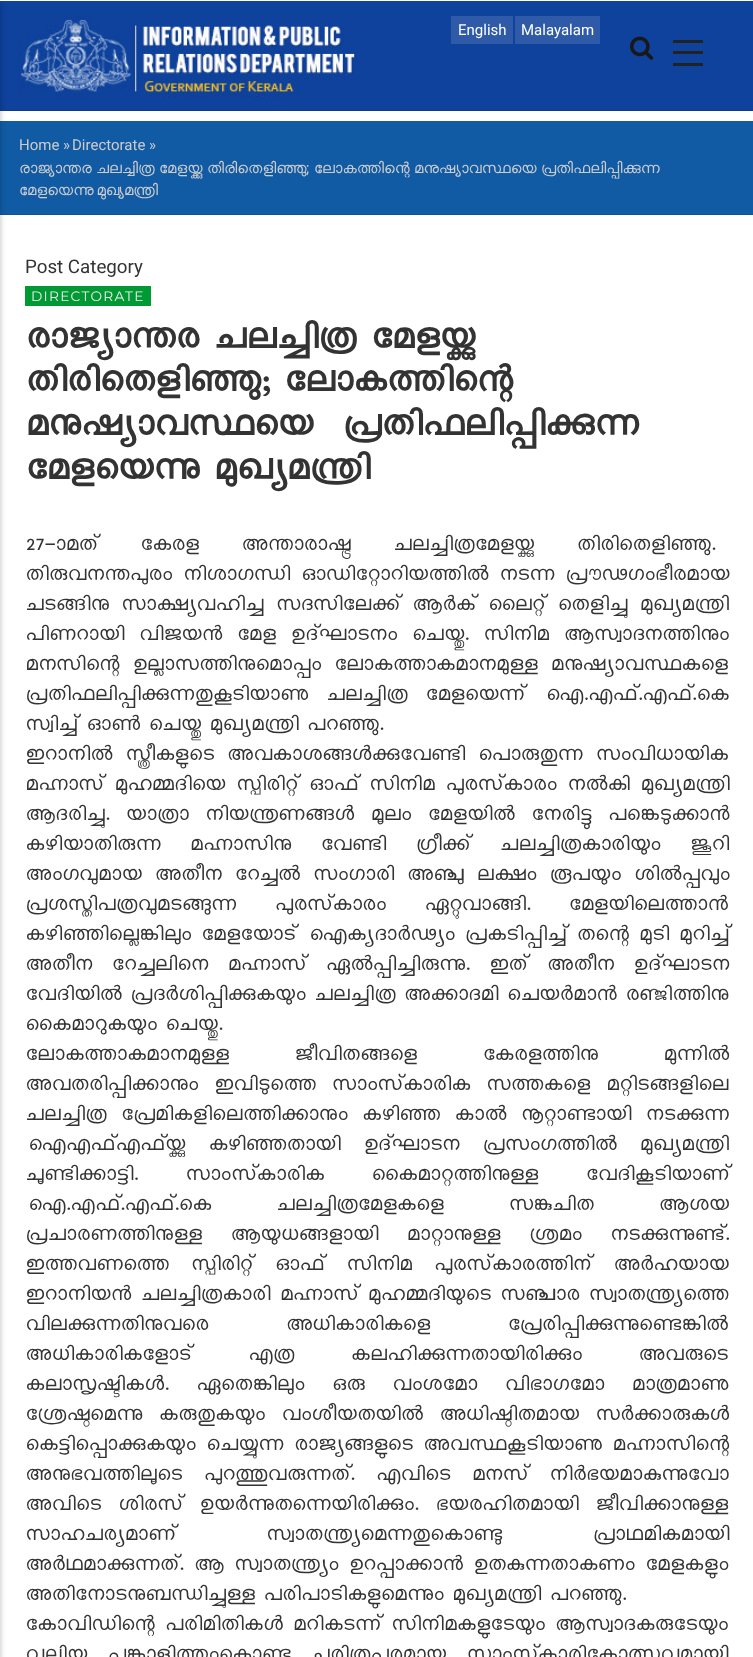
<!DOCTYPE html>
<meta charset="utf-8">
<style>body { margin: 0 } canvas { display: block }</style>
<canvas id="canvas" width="753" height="1657"></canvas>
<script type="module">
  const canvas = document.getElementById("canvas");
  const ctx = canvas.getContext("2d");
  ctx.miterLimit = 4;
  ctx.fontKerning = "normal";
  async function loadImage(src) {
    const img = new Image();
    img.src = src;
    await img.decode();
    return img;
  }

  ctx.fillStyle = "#ffffff";
  ctx.fillRect(0, 0, 753, 1657);
  ctx.fillStyle = "#0e429c";
  ctx.fillRect(0, 1, 753, 109);
  ctx.fillStyle = "#0d3b8c";
  ctx.fillRect(0, 110, 753, 1);
  ctx.fillStyle = "#115ba5";
  ctx.fillRect(0, 121, 753, 93);
  ctx.fillStyle = "#0f5295";
  ctx.fillRect(0, 214, 753, 1);
  ctx.fillStyle = "rgba(0, 0, 0, 0.2)";
  ctx.filter = "blur(2.5px)";
  ctx.beginPath();
  ctx.rect(-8, 4, 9, 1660);
  ctx.fill();
  ctx.filter = "none";
  ctx.fillStyle = "#222222";
  ctx.fillRect(673, 40, 30, 3);
  ctx.fillRect(673, 51, 30, 3);
  ctx.fillRect(673, 63, 30, 3);
  ctx.drawImage(await loadImage("img1.png"), 630, 36, 24, 24);
  ctx.drawImage(await loadImage("img2.png"), 18, 16, 340, 82);
  ctx.fillStyle = "#2e5aa7";
  ctx.fillRect(451, 16, 62, 28);
  ctx.font = "15px Roboto";
  ctx.fillStyle = "#ffffff";
  ctx.fillText("English", 458, 35);
  ctx.fillStyle = "#2e5aa7";
  ctx.fillRect(515, 16, 85, 28);
  ctx.fillStyle = "#ffffff";
  ctx.fillText("Malayalam", 521, 35);
  ctx.fillStyle = "#cccccc";
  ctx.fillText("Home »", 19, 150);
  ctx.fillText("Directorate »", 72, 150);
  ctx.font = "15px FreeSans";
  ctx.fillText("രാജ്യാന്തര", 19, 173);
  ctx.fillText("ചലച്ചിത്ര", 96, 173);
  ctx.fillText("മേളയ്ക്കു", 159, 173);
  ctx.fillText("തിരിതെളിഞ്ഞു", 207, 173);
  ctx.font = "15px Roboto";
  ctx.fillText(";", 306, 173);
  ctx.font = "15px FreeSans";
  ctx.fillText("ലോകത്തിന്റെ", 314, 173);
  ctx.fillText("മനുഷ്യാവസ്ഥയെ", 414, 173);
  ctx.fillText("പ്രതിഫലിപ്പിക്കുന്ന", 541, 173);
  ctx.wordSpacing = "-1px";
  ctx.fillText("മേളയെന്നു മുഖ്യമന്ത്രി", 19, 195);
  ctx.wordSpacing = "0px";
  ctx.font = "18.75px Roboto";
  ctx.fillStyle = "#333333";
  ctx.fillText("Post Category", 25, 273);
  ctx.fillStyle = "#019934";
  ctx.fillRect(25, 286, 126, 20);
  ctx.letterSpacing = "1.25px";
  ctx.font = "13.75px Montserrat";
  ctx.fillStyle = "#eeeeee";
  ctx.fillText("DIRECTORATE", 31, 301);
  ctx.letterSpacing = "0px";
  ctx.font = "bold 43.75px 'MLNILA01'";
  ctx.fillStyle = "#333333";
  ctx.fillText("രാജ്യാന്തര ചലച്ചിത്ര മേളയ്ക്കു", 25, 348);
  ctx.fillText("തിരിതെളിഞ്ഞു; ലോകത്തിന്റെ", 25, 391);
  ctx.fillText("മനുഷ്യാവസ്ഥയെ", 25, 435);
  ctx.fillText("പ്രതിഫലിപ്പിക്കുന്ന", 342, 435);
  ctx.fillText("മേളയെന്നു മുഖ്യമന്ത്രി", 25, 479);
  ctx.font = "25px 'MLNILA01'";
  ctx.fillText("27-", 25, 550);
  ctx.wordSpacing = "34px";
  ctx.fillText("ാമത് കേരള അന്താരാഷ്ട്ര ചലച്ചിത്രമേളയ്ക്കു തിരിതെളിഞ്ഞു.", 55, 550);
  ctx.wordSpacing = "2.5px";
  ctx.fillText("തിരുവനന്തപുരം നിശാഗന്ധി ഓഡിറ്റോറിയത്തിൽ നടന്ന പ്രൗഢഗംഭീരമായ", 25, 580);
  ctx.wordSpacing = "3.75px";
  ctx.fillText("ചടങ്ങിനു സാക്ഷ്യവഹിച്ച സദസിലേക്ക് ആർക് ലൈറ്റ് തെളിച്ചു മുഖ്യമന്ത്രി", 25, 610);
  ctx.wordSpacing = "6.25px";
  ctx.fillText("പിണറായി വിജയൻ മേള ഉദ്ഘാടനം ചെയ്തു. സിനിമ ആസ്വാദനത്തിനും", 25, 640);
  ctx.wordSpacing = "4.5px";
  ctx.fillText("മനസിന്റെ ഉല്ലാസത്തിനുമൊപ്പം ലോകത്താകമാനമുള്ള മനുഷ്യാവസ്ഥകളെ", 25, 670);
  ctx.wordSpacing = "9.5px";
  ctx.fillText("പ്രതിഫലിപ്പിക്കുന്നതുകൂടിയാണു ചലച്ചിത്ര മേളയെന്ന് ഐ.എഫ്.എഫ്.കെ", 25, 700);
  ctx.wordSpacing = "0px";
  ctx.fillText("സ്വിച്ച് ഓൺ ചെയ്തു മുഖ്യമന്ത്രി പറഞ്ഞു.", 25, 730);
  ctx.wordSpacing = "4.5px";
  ctx.fillText("ഇറാനിൽ സ്ത്രീകളുടെ അവകാശങ്ങൾക്കുവേണ്ടി പൊരുതുന്ന സംവിധായിക", 25, 760);
  ctx.wordSpacing = "2.25px";
  ctx.fillText("മഹ്നാസ് മുഹമ്മദിയെ സ്പിരിറ്റ് ഓഫ് സിനിമ പുരസ്‌കാരം നൽകി മുഖ്യമന്ത്രി", 25, 790);
  ctx.wordSpacing = "8px";
  ctx.fillText("ആദരിച്ചു. യാത്രാ നിയന്ത്രണങ്ങൾ മൂലം മേളയിൽ നേരിട്ടു പങ്കെടുക്കാൻ", 25, 820);
  ctx.wordSpacing = "21px";
  ctx.fillText("കഴിയാതിരുന്ന മഹ്നാസിനു വേണ്ടി ഗ്രീക്ക് ചലച്ചിത്രകാരിയും ജൂറി", 25, 850);
  ctx.wordSpacing = "4.5px";
  ctx.fillText("അംഗവുമായ അതീന റേച്ചൽ സംഗാരി അഞ്ചു ലക്ഷം രൂപയും ശിൽപ്പവും", 25, 880);
  ctx.wordSpacing = "30px";
  ctx.fillText("പ്രശസ്തിപത്രവുമടങ്ങുന്ന പുരസ്‌കാരം ഏറ്റുവാങ്ങി. മേളയിലെത്താൻ", 25, 910);
  ctx.wordSpacing = "1.5px";
  ctx.fillText("കഴിഞ്ഞില്ലെങ്കിലും മേളയോട് ഐക്യദാർഢ്യം പ്രകടിപ്പിച്ച് തന്റെ മുടി മുറിച്ച്", 25, 940);
  ctx.wordSpacing = "11px";
  ctx.fillText("അതീന റേച്ചലിനെ മഹ്നാസ് ഏൽപ്പിച്ചിരുന്നു. ഇത് അതീന ഉദ്ഘാടന", 25, 970);
  ctx.wordSpacing = "0px";
  ctx.fillText("വേദിയിൽ പ്രദർശിപ്പിക്കുകയും ചലച്ചിത്ര അക്കാദമി ചെയർമാൻ രഞ്ജിത്തിനു", 25, 1000);
  ctx.fillText("കൈമാറുകയും ചെയ്തു.", 25, 1030);
  ctx.wordSpacing = "57px";
  ctx.fillText("ലോകത്താകമാനമുള്ള ജീവിതങ്ങളെ കേരളത്തിനു മുന്നിൽ", 25, 1060);
  ctx.wordSpacing = "7.5px";
  ctx.fillText("അവതരിപ്പിക്കാനും ഇവിടുത്തെ സാംസ്‌കാരിക സത്തകളെ മറ്റിടങ്ങളിലെ", 25, 1090);
  ctx.wordSpacing = "6px";
  ctx.fillText("ചലച്ചിത്ര പ്രേമികളിലെത്തിക്കാനും കഴിഞ്ഞ കാൽ നൂറ്റാണ്ടായി നടക്കുന്ന", 25, 1120);
  ctx.wordSpacing = "14.5px";
  ctx.fillText("ഐഎഫ്എഫ്യ്ക്കു കഴിഞ്ഞതായി ഉദ്ഘാടന പ്രസംഗത്തിൽ മുഖ്യമന്ത്രി", 25, 1150);
  ctx.wordSpacing = "39px";
  ctx.fillText("ചൂണ്ടിക്കാട്ടി. സാംസ്‌കാരിക കൈമാറ്റത്തിനുള്ള വേദികൂടിയാണ്", 25, 1180);
  ctx.wordSpacing = "56.5px";
  ctx.fillText("ഐ.എഫ്.എഫ്.കെ ചലച്ചിത്രമേളകളെ സങ്കുചിത ആശയ", 25, 1210);
  ctx.wordSpacing = "20px";
  ctx.fillText("പ്രചാരണത്തിനുള്ള ആയുധങ്ങളായി മാറ്റാനുള്ള ശ്രമം നടക്കുന്നുണ്ട്.", 25, 1240);
  ctx.wordSpacing = "13.5px";
  ctx.fillText("ഇത്തവണത്തെ സ്പിരിറ്റ് ഓഫ് സിനിമ പുരസ്‌കാരത്തിന് അർഹയായ", 25, 1270);
  ctx.wordSpacing = "1px";
  ctx.fillText("ഇറാനിയൻ ചലച്ചിത്രകാരി മഹ്നാസ് മുഹമ്മദിയുടെ സഞ്ചാര സ്വാതന്ത്ര്യത്തെ", 25, 1300);
  ctx.wordSpacing = "69px";
  ctx.fillText("വിലക്കുന്നതിനുവരെ അധികാരികളെ പ്രേരിപ്പിക്കുന്നുണ്ടെങ്കിൽ", 25, 1330);
  ctx.wordSpacing = "48px";
  ctx.fillText("അധികാരികളോട് എത്ര കലഹിക്കുന്നതായിരിക്കും അവരുടെ", 25, 1360);
  ctx.wordSpacing = "19px";
  ctx.fillText("കലാസൃഷ്ടികൾ. ഏതെങ്കിലും ഒരു വംശമോ വിഭാഗമോ മാത്രമാണു", 25, 1390);
  ctx.wordSpacing = "8px";
  ctx.fillText("ശ്രേഷ്ഠമെന്നു കരുതുകയും വംശീയതയിൽ അധിഷ്ഠിതമായ സർക്കാരുകൾ", 25, 1420);
  ctx.wordSpacing = "2px";
  ctx.fillText("കെട്ടിപ്പൊക്കുകയും ചെയ്യുന്ന രാജ്യങ്ങളുടെ അവസ്ഥകൂടിയാണു മഹ്നാസിന്റെ", 25, 1450);
  ctx.wordSpacing = "13px";
  ctx.fillText("അനുഭവത്തിലൂടെ പുറത്തുവരുന്നത്. എവിടെ മനസ് നിർഭയമാകുന്നുവോ", 25, 1480);
  ctx.wordSpacing = "8.5px";
  ctx.fillText("അവിടെ ശിരസ് ഉയർന്നുതന്നെയിരിക്കും. ഭയരഹിതമായി ജീവിക്കാനുള്ള", 25, 1510);
  ctx.wordSpacing = "82px";
  ctx.fillText("സാഹചര്യമാണ് സ്വാതന്ത്ര്യമെന്നതുകൊണ്ടു പ്രാഥമികമായി", 25, 1540);
  ctx.wordSpacing = "2px";
  ctx.fillText("അർഥമാക്കുന്നത്. ആ സ്വാതന്ത്ര്യം ഉറപ്പാക്കാൻ ഉതകുന്നതാകണം മേളകളും", 25, 1570);
  ctx.wordSpacing = "0px";
  ctx.fillText("അതിനോടനുബന്ധിച്ചുള്ള പരിപാടികളുമെന്നും മുഖ്യമന്ത്രി പറഞ്ഞു.", 25, 1600);
  ctx.wordSpacing = "1.5px";
  ctx.fillText("കോവിഡിന്റെ പരിമിതികൾ മറികടന്ന് സിനിമകളുടേയും ആസ്വാദകരുടേയും", 25, 1630);
  ctx.wordSpacing = "12px";
  ctx.fillText("വലിയ പങ്കാളിത്തംകൊണ്ടു ചരിത്രപരമായ സാംസ്‌കാരികോത്സവമായി", 25, 1660);
</script>
